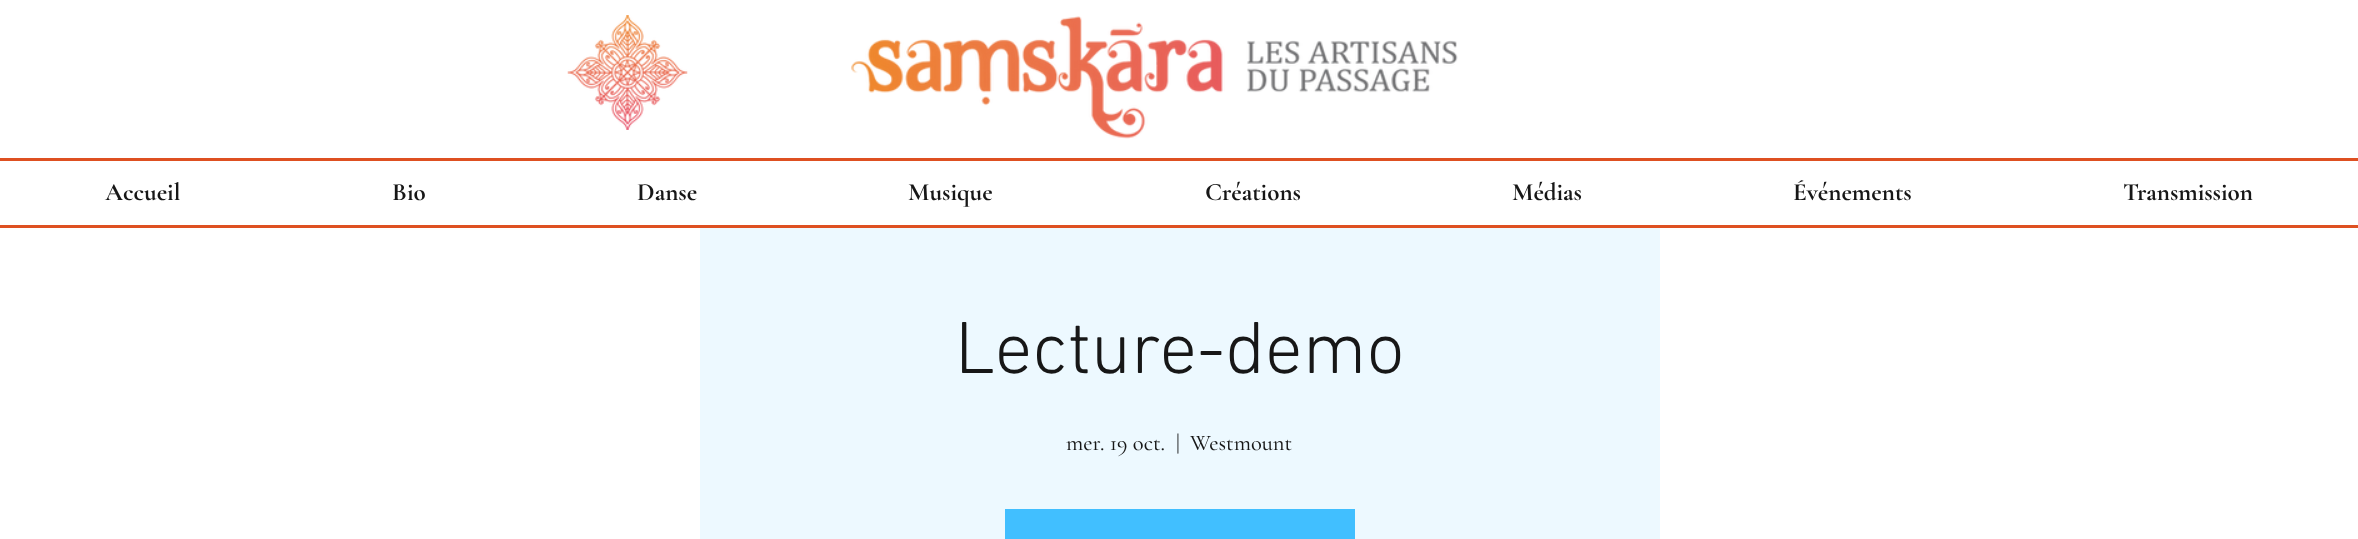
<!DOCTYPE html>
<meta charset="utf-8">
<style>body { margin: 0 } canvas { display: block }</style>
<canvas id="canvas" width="2358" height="539"></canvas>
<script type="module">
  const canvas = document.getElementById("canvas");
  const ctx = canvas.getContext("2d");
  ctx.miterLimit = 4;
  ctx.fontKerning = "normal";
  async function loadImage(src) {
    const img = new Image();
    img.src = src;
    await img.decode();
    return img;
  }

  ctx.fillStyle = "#ffffff";
  ctx.fillRect(0, 0, 2358, 539);
  ctx.drawImage(await loadImage("img1.png"), 567, 15, 121, 115);
  ctx.drawImage(await loadImage("img2.png"), 851, 16, 607, 123);
  ctx.fillStyle = "#de5021";
  ctx.fillRect(0, 158, 2358, 3);
  ctx.fillRect(0, 225, 2358, 3);
  ctx.font = "bold 25px Cormorant Garamond";
  ctx.fillStyle = "#171717";
  ctx.fillText("Accueil", 105, 200);
  ctx.fillText("Bio", 392, 200);
  ctx.fillText("Danse", 637, 200);
  ctx.fillText("Musique", 908, 200);
  ctx.fillText("Créations", 1205, 200);
  ctx.fillText("Médias", 1512, 200);
  ctx.fillText("Événements", 1793, 200);
  ctx.fillText("Transmission", 2123, 200);
  ctx.fillStyle = "#edf9ff";
  ctx.fillRect(700, 228, 960, 311);
  ctx.font = "300 75px 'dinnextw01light'";
  ctx.fillStyle = "#171717";
  ctx.fillText("Lecture-demo", 955, 373);
  ctx.font = "500 22.5px Cormorant Garamond";
  ctx.fillText("mer. 19 oct.", 1066, 450);
  ctx.fillText("|", 1176, 450);
  ctx.fillText("Westmount", 1190, 450);
  ctx.fillStyle = "#41bfff";
  ctx.fillRect(1005, 509, 350, 30);
</script>
